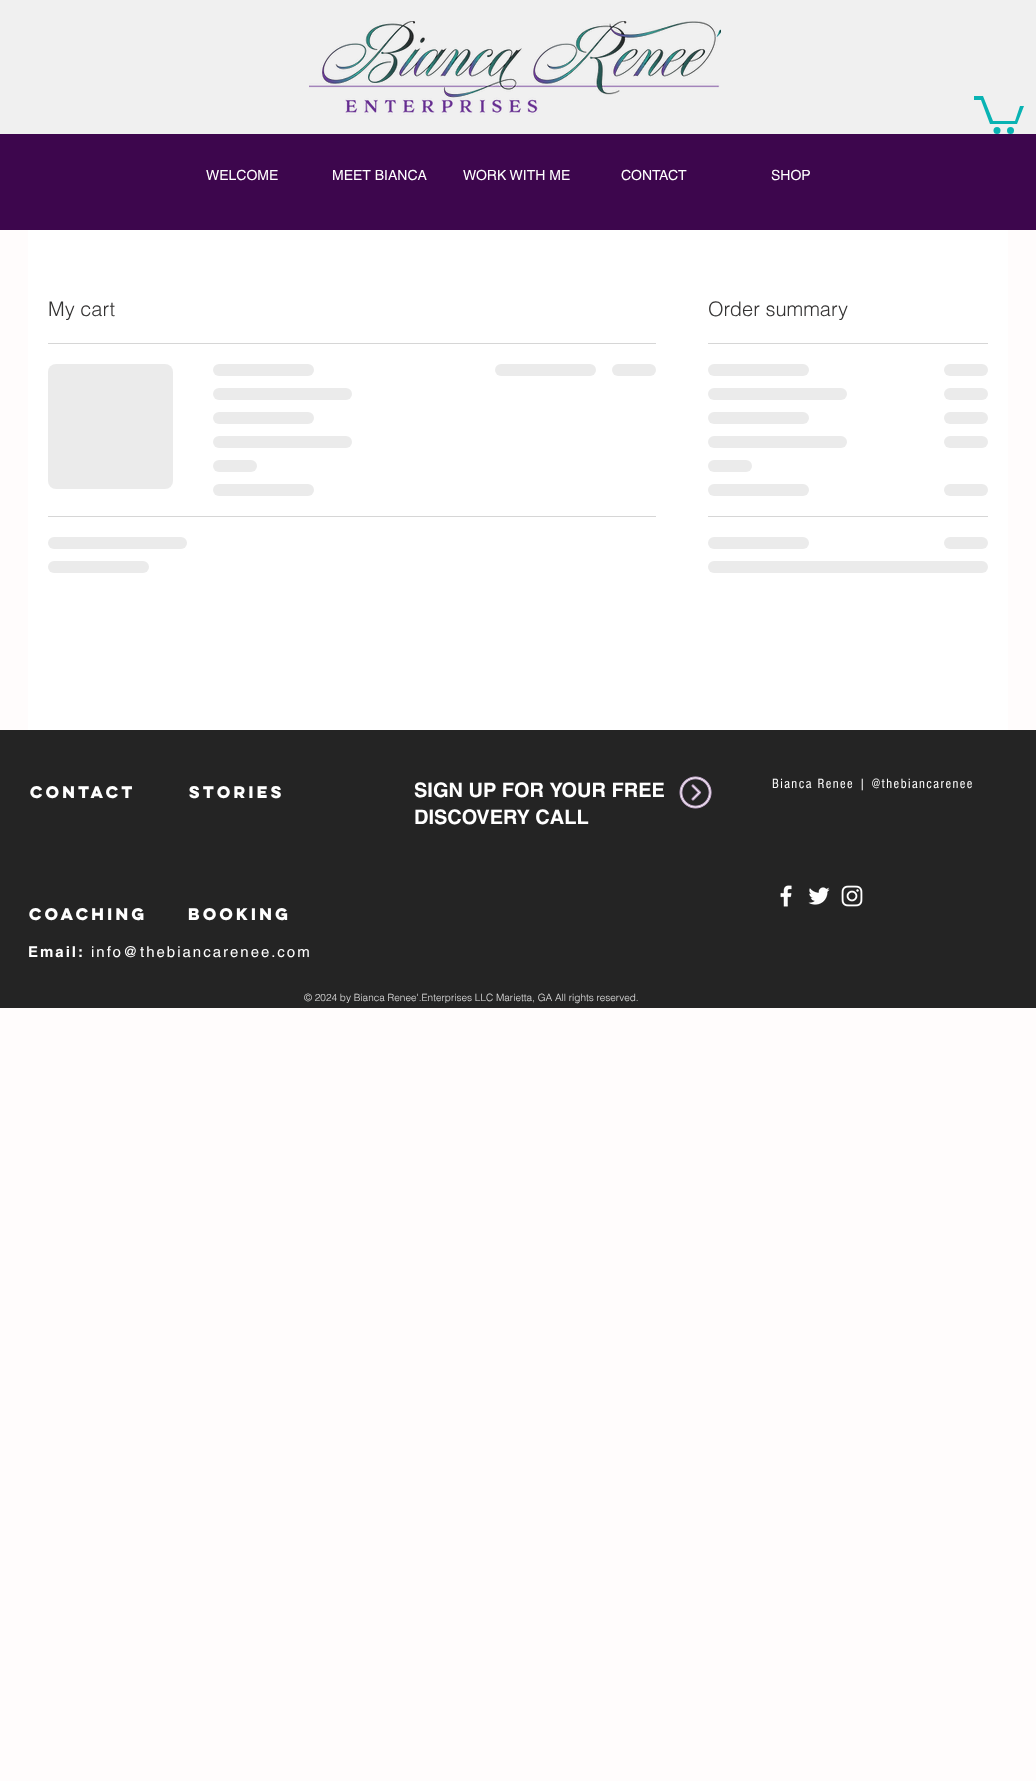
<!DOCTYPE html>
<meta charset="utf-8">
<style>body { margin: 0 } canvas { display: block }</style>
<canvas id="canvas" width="1036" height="1781"></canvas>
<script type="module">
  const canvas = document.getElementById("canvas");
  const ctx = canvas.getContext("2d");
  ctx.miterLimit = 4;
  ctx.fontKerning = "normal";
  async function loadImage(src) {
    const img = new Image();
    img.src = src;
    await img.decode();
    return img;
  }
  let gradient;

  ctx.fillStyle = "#fffcfc";
  ctx.fillRect(0, 0, 1036, 1781);
  ctx.fillStyle = "#f0f0f0";
  ctx.fillRect(0, 0, 1036, 134);
  ctx.drawImage(await loadImage("img1.png"), 309, 21, 412, 94);
  ctx.fillStyle = "#09b3b3";
  ctx.beginPath();
  ctx.moveTo(1024, 106);
  ctx.lineTo(1017, 124);
  ctx.lineTo(990, 124);
  ctx.lineTo(981, 100);
  ctx.lineTo(974, 100);
  ctx.lineTo(974, 96);
  ctx.lineTo(983, 96);
  ctx.lineTo(993, 121);
  ctx.lineTo(1015, 121);
  ctx.lineTo(1020, 106);
  ctx.fill();
  ctx.beginPath();
  ctx.arc(1010.5, 130.5, 3.5, 0, Math.PI * 2);
  ctx.fill();
  ctx.beginPath();
  ctx.arc(997, 130.5, 3.5, 0, Math.PI * 2);
  ctx.fill();
  ctx.fillStyle = "#3d064d";
  ctx.fillRect(0, 134, 1036, 96);
  ctx.font = "14px helvetica";
  ctx.fillStyle = "#ffffff";
  ctx.fillText("WELCOME", 206, 180);
  ctx.fillText("MEET BIANCA", 332, 180);
  ctx.fillText("WORK WITH ME", 463, 180);
  ctx.fillText("CONTACT", 621, 180);
  ctx.fillText("SHOP", 771, 180);
  ctx.fillRect(28, 230, 980, 500);
  ctx.fillStyle = "#d6d6d6";
  ctx.fillRect(48, 343, 608, 1);
  ctx.font = "300 20px helvetica";
  ctx.fillStyle = "#333232";
  ctx.fillText("My cart", 48, 316);
  gradient = ctx.createLinearGradient(48, 427, 548, 427);
  gradient.addColorStop(0.25, "#ebebeb");
  gradient.addColorStop(0.37, "#d6d6d6");
  gradient.addColorStop(0.63, "#ebebeb");
  ctx.fillStyle = gradient;
  ctx.beginPath();
  ctx.roundRect(48, 364, 125, 125, 8);
  ctx.fill();
  gradient = ctx.createLinearGradient(213, 370, 617, 370);
  gradient.addColorStop(0.25, "#ebebeb");
  gradient.addColorStop(0.37, "#d6d6d6");
  gradient.addColorStop(0.63, "#ebebeb");
  ctx.fillStyle = gradient;
  ctx.beginPath();
  ctx.roundRect(213, 364, 101, 12, 6);
  ctx.fill();
  gradient = ctx.createLinearGradient(213, 394, 769, 394);
  gradient.addColorStop(0.25, "#ebebeb");
  gradient.addColorStop(0.37, "#d6d6d6");
  gradient.addColorStop(0.63, "#ebebeb");
  ctx.fillStyle = gradient;
  ctx.beginPath();
  ctx.roundRect(213, 388, 139, 12, 6);
  ctx.fill();
  gradient = ctx.createLinearGradient(213, 418, 617, 418);
  gradient.addColorStop(0.25, "#ebebeb");
  gradient.addColorStop(0.37, "#d6d6d6");
  gradient.addColorStop(0.63, "#ebebeb");
  ctx.fillStyle = gradient;
  ctx.beginPath();
  ctx.roundRect(213, 412, 101, 12, 6);
  ctx.fill();
  gradient = ctx.createLinearGradient(213, 442, 769, 442);
  gradient.addColorStop(0.25, "#ebebeb");
  gradient.addColorStop(0.37, "#d6d6d6");
  gradient.addColorStop(0.63, "#ebebeb");
  ctx.fillStyle = gradient;
  ctx.beginPath();
  ctx.roundRect(213, 436, 139, 12, 6);
  ctx.fill();
  gradient = ctx.createLinearGradient(213, 466, 389, 466);
  gradient.addColorStop(0.25, "#ebebeb");
  gradient.addColorStop(0.37, "#d6d6d6");
  gradient.addColorStop(0.63, "#ebebeb");
  ctx.fillStyle = gradient;
  ctx.beginPath();
  ctx.roundRect(213, 460, 44, 12, 6);
  ctx.fill();
  gradient = ctx.createLinearGradient(213, 490, 617, 490);
  gradient.addColorStop(0.25, "#ebebeb");
  gradient.addColorStop(0.37, "#d6d6d6");
  gradient.addColorStop(0.63, "#ebebeb");
  ctx.fillStyle = gradient;
  ctx.beginPath();
  ctx.roundRect(213, 484, 101, 12, 6);
  ctx.fill();
  gradient = ctx.createLinearGradient(495, 370, 899, 370);
  gradient.addColorStop(0.25, "#ebebeb");
  gradient.addColorStop(0.37, "#d6d6d6");
  gradient.addColorStop(0.63, "#ebebeb");
  ctx.fillStyle = gradient;
  ctx.beginPath();
  ctx.roundRect(495, 364, 101, 12, 6);
  ctx.fill();
  gradient = ctx.createLinearGradient(612, 370, 788, 370);
  gradient.addColorStop(0.25, "#ebebeb");
  gradient.addColorStop(0.37, "#d6d6d6");
  gradient.addColorStop(0.63, "#ebebeb");
  ctx.fillStyle = gradient;
  ctx.beginPath();
  ctx.roundRect(612, 364, 44, 12, 6);
  ctx.fill();
  ctx.fillStyle = "#d6d6d6";
  ctx.fillRect(48, 516, 608, 1);
  gradient = ctx.createLinearGradient(48, 543, 604, 543);
  gradient.addColorStop(0.25, "#ebebeb");
  gradient.addColorStop(0.37, "#d6d6d6");
  gradient.addColorStop(0.63, "#ebebeb");
  ctx.fillStyle = gradient;
  ctx.beginPath();
  ctx.roundRect(48, 537, 139, 12, 6);
  ctx.fill();
  gradient = ctx.createLinearGradient(48, 567, 452, 567);
  gradient.addColorStop(0.25, "#ebebeb");
  gradient.addColorStop(0.37, "#d6d6d6");
  gradient.addColorStop(0.63, "#ebebeb");
  ctx.fillStyle = gradient;
  ctx.beginPath();
  ctx.roundRect(48, 561, 101, 12, 6);
  ctx.fill();
  ctx.fillStyle = "#d6d6d6";
  ctx.fillRect(708, 343, 280, 1);
  ctx.fillStyle = "#333232";
  ctx.fillText("Order summary", 708, 316);
  gradient = ctx.createLinearGradient(708, 370, 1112, 370);
  gradient.addColorStop(0.25, "#ebebeb");
  gradient.addColorStop(0.37, "#d6d6d6");
  gradient.addColorStop(0.63, "#ebebeb");
  ctx.fillStyle = gradient;
  ctx.beginPath();
  ctx.roundRect(708, 364, 101, 12, 6);
  ctx.fill();
  gradient = ctx.createLinearGradient(944, 370, 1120, 370);
  gradient.addColorStop(0.25, "#ebebeb");
  gradient.addColorStop(0.37, "#d6d6d6");
  gradient.addColorStop(0.63, "#ebebeb");
  ctx.fillStyle = gradient;
  ctx.beginPath();
  ctx.roundRect(944, 364, 44, 12, 6);
  ctx.fill();
  gradient = ctx.createLinearGradient(708, 394, 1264, 394);
  gradient.addColorStop(0.25, "#ebebeb");
  gradient.addColorStop(0.37, "#d6d6d6");
  gradient.addColorStop(0.63, "#ebebeb");
  ctx.fillStyle = gradient;
  ctx.beginPath();
  ctx.roundRect(708, 388, 139, 12, 6);
  ctx.fill();
  gradient = ctx.createLinearGradient(944, 394, 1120, 394);
  gradient.addColorStop(0.25, "#ebebeb");
  gradient.addColorStop(0.37, "#d6d6d6");
  gradient.addColorStop(0.63, "#ebebeb");
  ctx.fillStyle = gradient;
  ctx.beginPath();
  ctx.roundRect(944, 388, 44, 12, 6);
  ctx.fill();
  gradient = ctx.createLinearGradient(708, 418, 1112, 418);
  gradient.addColorStop(0.25, "#ebebeb");
  gradient.addColorStop(0.37, "#d6d6d6");
  gradient.addColorStop(0.63, "#ebebeb");
  ctx.fillStyle = gradient;
  ctx.beginPath();
  ctx.roundRect(708, 412, 101, 12, 6);
  ctx.fill();
  gradient = ctx.createLinearGradient(944, 418, 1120, 418);
  gradient.addColorStop(0.25, "#ebebeb");
  gradient.addColorStop(0.37, "#d6d6d6");
  gradient.addColorStop(0.63, "#ebebeb");
  ctx.fillStyle = gradient;
  ctx.beginPath();
  ctx.roundRect(944, 412, 44, 12, 6);
  ctx.fill();
  gradient = ctx.createLinearGradient(708, 442, 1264, 442);
  gradient.addColorStop(0.25, "#ebebeb");
  gradient.addColorStop(0.37, "#d6d6d6");
  gradient.addColorStop(0.63, "#ebebeb");
  ctx.fillStyle = gradient;
  ctx.beginPath();
  ctx.roundRect(708, 436, 139, 12, 6);
  ctx.fill();
  gradient = ctx.createLinearGradient(944, 442, 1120, 442);
  gradient.addColorStop(0.25, "#ebebeb");
  gradient.addColorStop(0.37, "#d6d6d6");
  gradient.addColorStop(0.63, "#ebebeb");
  ctx.fillStyle = gradient;
  ctx.beginPath();
  ctx.roundRect(944, 436, 44, 12, 6);
  ctx.fill();
  gradient = ctx.createLinearGradient(708, 466, 884, 466);
  gradient.addColorStop(0.25, "#ebebeb");
  gradient.addColorStop(0.37, "#d6d6d6");
  gradient.addColorStop(0.63, "#ebebeb");
  ctx.fillStyle = gradient;
  ctx.beginPath();
  ctx.roundRect(708, 460, 44, 12, 6);
  ctx.fill();
  gradient = ctx.createLinearGradient(708, 490, 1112, 490);
  gradient.addColorStop(0.25, "#ebebeb");
  gradient.addColorStop(0.37, "#d6d6d6");
  gradient.addColorStop(0.63, "#ebebeb");
  ctx.fillStyle = gradient;
  ctx.beginPath();
  ctx.roundRect(708, 484, 101, 12, 6);
  ctx.fill();
  gradient = ctx.createLinearGradient(944, 490, 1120, 490);
  gradient.addColorStop(0.25, "#ebebeb");
  gradient.addColorStop(0.37, "#d6d6d6");
  gradient.addColorStop(0.63, "#ebebeb");
  ctx.fillStyle = gradient;
  ctx.beginPath();
  ctx.roundRect(944, 484, 44, 12, 6);
  ctx.fill();
  ctx.fillStyle = "#d6d6d6";
  ctx.fillRect(708, 516, 280, 1);
  gradient = ctx.createLinearGradient(708, 543, 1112, 543);
  gradient.addColorStop(0.25, "#ebebeb");
  gradient.addColorStop(0.37, "#d6d6d6");
  gradient.addColorStop(0.63, "#ebebeb");
  ctx.fillStyle = gradient;
  ctx.beginPath();
  ctx.roundRect(708, 537, 101, 12, 6);
  ctx.fill();
  gradient = ctx.createLinearGradient(944, 543, 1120, 543);
  gradient.addColorStop(0.25, "#ebebeb");
  gradient.addColorStop(0.37, "#d6d6d6");
  gradient.addColorStop(0.63, "#ebebeb");
  ctx.fillStyle = gradient;
  ctx.beginPath();
  ctx.roundRect(944, 537, 44, 12, 6);
  ctx.fill();
  gradient = ctx.createLinearGradient(708, 567, 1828, 567);
  gradient.addColorStop(0.25, "#ebebeb");
  gradient.addColorStop(0.37, "#d6d6d6");
  gradient.addColorStop(0.63, "#ebebeb");
  ctx.fillStyle = gradient;
  ctx.beginPath();
  ctx.roundRect(708, 561, 280, 12, 6);
  ctx.fill();
  ctx.fillStyle = "#242424";
  ctx.fillRect(0, 730, 1036, 278);
  ctx.font = "bold 15px 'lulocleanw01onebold'";
  ctx.fillStyle = "#ffffff";
  ctx.fillText("CONTACT", 30, 798);
  ctx.fillText("STORIES", 189, 798);
  ctx.font = "bold 20px helvetica";
  ctx.fillText("SIGN UP FOR YOUR FREE", 414, 797);
  ctx.fillText("DISCOVERY CALL", 414, 824);
  ctx.drawImage(await loadImage("img2.png"), 679, 776, 33, 33);
  ctx.letterSpacing = "1.4px";
  ctx.font = "14px 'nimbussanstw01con'";
  ctx.fillText("Bianca Renee | @thebiancarenee", 772, 788);
  ctx.drawImage(await loadImage("img3.png"), 780, 885, 12, 22);
  ctx.drawImage(await loadImage("img4.png"), 808, 887, 22, 18);
  ctx.drawImage(await loadImage("img5.png"), 841, 885, 22, 22);
  ctx.letterSpacing = "0px";
  ctx.font = "bold 15px 'lulocleanw01onebold'";
  ctx.fillText("COACHING", 29, 920);
  ctx.fillText("BOOKING", 188, 920);
  ctx.letterSpacing = "2px";
  ctx.font = "bold 15px helvetica";
  ctx.fillText("Email:", 28, 957);
  ctx.font = "15px helvetica";
  ctx.fillText("info@thebiancarenee.com", 91, 957);
  ctx.letterSpacing = "0px";
  ctx.font = "300 10px helvetica";
  ctx.fillStyle = "#e3e3e3";
  ctx.fillText("© 2024 by Bianca Renee'.Enterprises LLC Marietta, GA All rights reserved.", 304, 1001);
</script>
